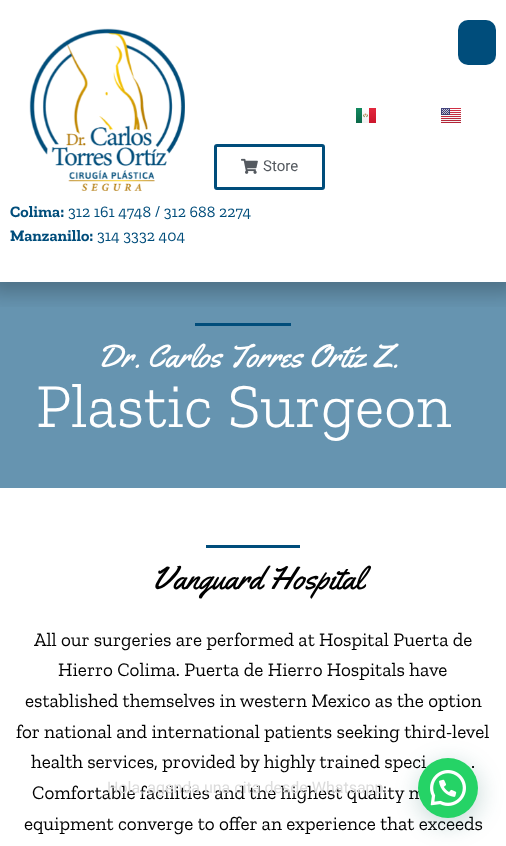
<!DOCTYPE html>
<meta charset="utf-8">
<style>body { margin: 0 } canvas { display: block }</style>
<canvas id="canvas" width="506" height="846"></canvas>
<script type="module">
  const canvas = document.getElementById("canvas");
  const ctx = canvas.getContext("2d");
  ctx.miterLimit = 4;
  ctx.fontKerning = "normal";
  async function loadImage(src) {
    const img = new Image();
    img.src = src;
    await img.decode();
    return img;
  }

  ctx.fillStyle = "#ffffff";
  ctx.fillRect(0, 0, 506, 846);
  ctx.fillStyle = "#6694b0";
  ctx.fillRect(0, 282, 506, 206);
  ctx.fillStyle = "#004d7b";
  ctx.fillRect(195, 323, 96, 3);
  ctx.save();
  ctx.beginPath();
  ctx.rect(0, 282, 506, 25);
  ctx.clip();
  ctx.fillStyle = "rgba(0, 0, 0, 0.24)";
  ctx.filter = "blur(10px)";
  ctx.beginPath();
  ctx.rect(-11, -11, 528, 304);
  ctx.fill();
  ctx.filter = "none";
  ctx.restore();
  ctx.drawImage(await loadImage("img1.png"), 29, 28, 156, 163);
  ctx.beginPath();
  ctx.roundRect(458, 20, 38, 45, 10);
  ctx.fill();
  ctx.drawImage(await loadImage("img2.png"), 356, 108, 20, 15);
  ctx.drawImage(await loadImage("img3.png"), 441, 108, 20, 15);
  ctx.beginPath();
  ctx.roundRect(215.5, 145.5, 108, 43, 1.5);
  ctx.strokeStyle = "#004d7b";
  ctx.lineWidth = 3;
  ctx.stroke();
  ctx.drawImage(await loadImage("img4.png"), 241, 158, 17, 16);
  ctx.font = "15px Roboto";
  ctx.fillStyle = "#54595f";
  ctx.fillText("Store", 263, 171);
  ctx.font = "bold 16px Zilla Slab";
  ctx.fillStyle = "#004d7b";
  ctx.fillText("Colima:", 10, 217);
  ctx.font = "16px Zilla Slab";
  ctx.fillText("312 161 4748 / 312 688 2274", 68, 217);
  ctx.font = "bold 16px Zilla Slab";
  ctx.fillText("Manzanillo:", 10, 241);
  ctx.font = "16px Zilla Slab";
  ctx.fillText("314 3332 404", 97, 241);
  ctx.font = "32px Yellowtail";
  ctx.fillStyle = "#ffffff";
  ctx.fillText("Dr. Carlos Torres Ortíz Z.", 97, 367);
  ctx.font = "300 62.5px Zilla Slab";
  ctx.fillText("Plastic Surgeon", 36, 427);
  ctx.fillStyle = "#004d7b";
  ctx.fillRect(206, 545, 94, 3);
  ctx.font = "32px Yellowtail";
  ctx.fillStyle = "#000000";
  ctx.fillText("Vanguard Hospital", 152, 589);
  ctx.font = "19.2px Zilla Slab";
  ctx.fillText("All our surgeries are performed at Hospital Puerta de", 34, 646);
  ctx.fillText("Hierro Colima. Puerta de Hierro Hospitals have", 58, 676);
  ctx.fillText("established themselves in western Mexico as the option", 25, 707);
  ctx.fillText("for national and international patients seeking third-level", 16, 738);
  ctx.fillText("health services, provided by highly trained speci", 31, 768);
  ctx.fillText(".", 471, 768);
  ctx.fillText("Comfortable facilities and the highest quality m", 32, 799);
  ctx.fillText("equipment converge to offer an experience that exceeds", 24, 830);
  ctx.fillStyle = "rgba(7, 94, 84, 0.24)";
  ctx.filter = "blur(12px)";
  ctx.beginPath();
  ctx.roundRect(419, 764, 60, 60, 30);
  ctx.fill();
  ctx.filter = "none";
  ctx.fillStyle = "#25d366";
  ctx.beginPath();
  ctx.arc(448, 788, 30, 0, Math.PI * 2);
  ctx.fill();
  ctx.font = "16px Roboto";
  ctx.fillStyle = "#dcdcdc";
  ctx.fillText("Hola, agenda una cita desde Whatsapp.", 107, 793);
  ctx.drawImage(await loadImage("img5.png"), 430, 770, 36, 36);
</script>
